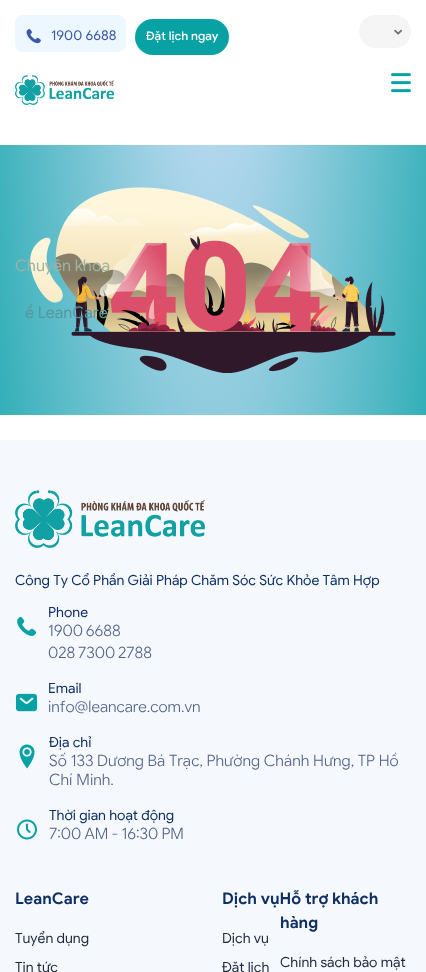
<!DOCTYPE html>
<meta charset="utf-8">
<style>body { margin: 0 } canvas { display: block }</style>
<canvas id="canvas" width="426" height="972"></canvas>
<script type="module">
  const canvas = document.getElementById("canvas");
  const ctx = canvas.getContext("2d");
  ctx.miterLimit = 4;
  ctx.fontKerning = "none";
  async function loadImage(src) {
    const img = new Image();
    img.src = src;
    await img.decode();
    return img;
  }
  let gradient;

  ctx.fillStyle = "#ffffff";
  ctx.fillRect(0, 0, 426, 972);
  ctx.fillStyle = "#edf7ff";
  ctx.beginPath();
  ctx.roundRect(15, 15, 111, 37, 8);
  ctx.fill();
  ctx.drawImage(await loadImage("img1.png"), 26, 29, 15, 15);
  ctx.font = "14px Google Sans";
  ctx.fillStyle = "#3c57a4";
  ctx.fillText("1900 6688", 51, 40);
  ctx.fillStyle = "#08a2a5";
  ctx.beginPath();
  ctx.roundRect(135, 19, 94, 36, 18);
  ctx.fill();
  ctx.font = "500 12px Google Sans";
  ctx.fillStyle = "#ffffff";
  ctx.fillText("Đặt lịch ngay", 146, 40);
  ctx.fillStyle = "#f5f5f5";
  ctx.beginPath();
  ctx.roundRect(359, 15, 52, 33, 16.5);
  ctx.fill();
  ctx.drawImage(await loadImage("img2.png"), 394, 29, 8, 6);
  ctx.drawImage(await loadImage("img3.png"), 15, 75, 99, 30);
  ctx.drawImage(await loadImage("img4.png"), 391, 73, 20, 20);
  gradient = ctx.createRadialGradient(213, -35.39, 0, 213, -35.39, 301);
  gradient.addColorStop(0, "#dde4ff");
  gradient.addColorStop(1, "#08a2a5");
  ctx.fillStyle = gradient;
  ctx.beginPath();
  ctx.rect(0, 145, 426, 270);
  ctx.save();
  ctx.clip();
  ctx.scale(1, 1650 / 301);
  ctx.fillRect(0, 0, 426, 178);
  ctx.restore();
  ctx.drawImage(await loadImage("img5.png"), 30, 187, 366, 186);
  ctx.font = "16px Google Sans";
  ctx.fillStyle = "#9eb3a1";
  ctx.fillText("Chuyên khoa", 15, 271);
  ctx.fillStyle = "#56989d";
  ctx.fillText("ề LeanCare", 25, 318);
  ctx.fillStyle = "#f5f9fe";
  ctx.fillRect(0, 440, 426, 532);
  ctx.drawImage(await loadImage("img6.png"), 15, 490, 190, 58);
  ctx.font = "14px Google Sans";
  ctx.fillStyle = "#0f2f64";
  ctx.fillText("Công Ty Cổ Phần Giải Pháp Chăm Sóc Sức Khỏe Tâm Hợp", 15, 585);
  ctx.drawImage(await loadImage("img7.png"), 17, 617, 20, 19);
  ctx.fillText("Phone", 48, 617);
  ctx.wordSpacing = "-1px";
  ctx.font = "300 16px Google Sans";
  ctx.fillStyle = "#536288";
  ctx.fillText("1900 6688", 48, 636);
  ctx.fillText("028 7300 2788", 48, 658);
  ctx.drawImage(await loadImage("img8.png"), 15, 693, 23, 19);
  ctx.wordSpacing = "0px";
  ctx.font = "14px Google Sans";
  ctx.fillStyle = "#0f2f64";
  ctx.fillText("Email", 48, 693);
  ctx.font = "300 16px Google Sans";
  ctx.fillStyle = "#536288";
  ctx.fillText("info@leancare.com.vn", 48, 712);
  ctx.drawImage(await loadImage("img9.png"), 19, 744, 16, 25);
  ctx.font = "14px Google Sans";
  ctx.fillStyle = "#0f2f64";
  ctx.fillText("Địa chỉ", 49, 747);
  ctx.font = "300 16px Google Sans";
  ctx.fillStyle = "#536288";
  ctx.fillText("Số 133 Dương Bá Trạc, Phường Chánh Hưng, TP Hồ", 49, 766);
  ctx.fillText("Chí Minh.", 49, 785);
  ctx.drawImage(await loadImage("img10.png"), 17, 819, 20, 21);
  ctx.font = "14px Google Sans";
  ctx.fillStyle = "#0f2f64";
  ctx.fillText("Thời gian hoạt động", 49, 820);
  ctx.wordSpacing = "-0.5px";
  ctx.font = "300 16px Google Sans";
  ctx.fillStyle = "#536288";
  ctx.fillText("7:00 AM - 16:30 PM", 49, 839);
  ctx.wordSpacing = "0px";
  ctx.font = "bold 16px Google Sans";
  ctx.fillStyle = "#0f2f64";
  ctx.fillText("LeanCare", 15, 904);
  ctx.font = "14px Google Sans";
  ctx.fillStyle = "#1e293b";
  ctx.fillText("Tuyển dụng", 15, 943);
  ctx.fillText("Tin tức", 15, 972);
  ctx.font = "bold 16px Google Sans";
  ctx.fillStyle = "#0f2f64";
  ctx.fillText("Dịch vụHỗ trợ khách", 222, 904);
  ctx.font = "14px Google Sans";
  ctx.fillStyle = "#1e293b";
  ctx.fillText("Dịch vụ", 222, 943);
  ctx.fillText("Đặt lịch", 222, 972);
  ctx.font = "bold 16px Google Sans";
  ctx.fillStyle = "#0f2f64";
  ctx.fillText("hàng", 280, 928);
  ctx.font = "14px Google Sans";
  ctx.fillStyle = "#1e293b";
  ctx.fillText("Chính sách bảo mật", 280, 967);
</script>
